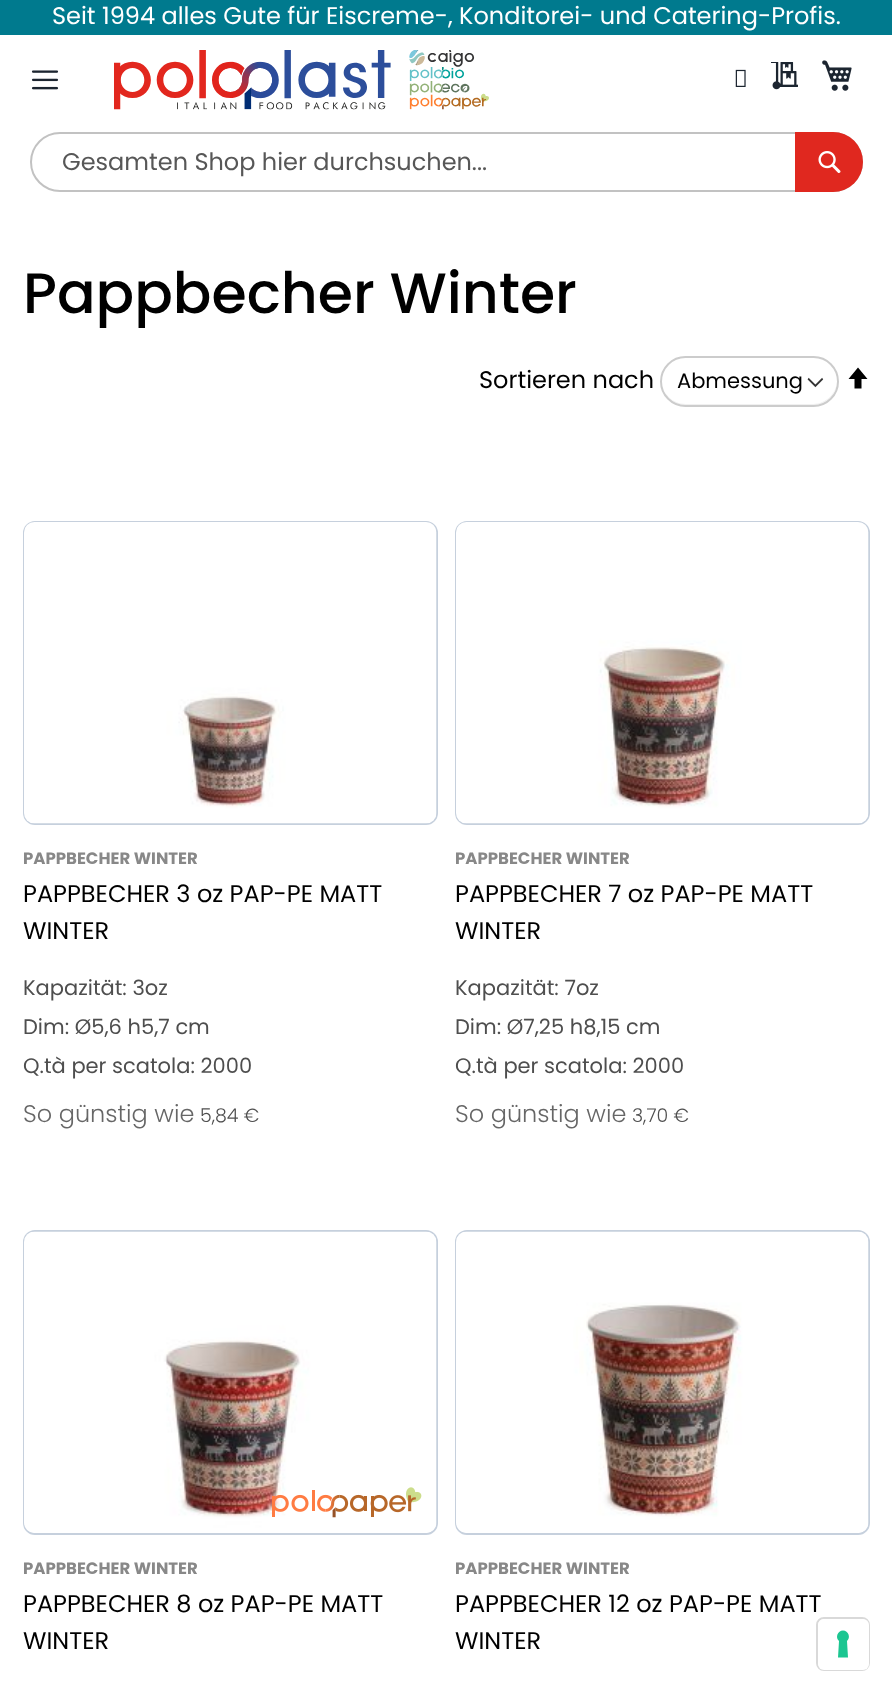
<!DOCTYPE html>
<meta charset="utf-8">
<style>body { margin: 0 } canvas { display: block }</style>
<canvas id="canvas" width="892" height="1693"></canvas>
<script type="module">
  const canvas = document.getElementById("canvas");
  const ctx = canvas.getContext("2d");
  ctx.miterLimit = 4;
  ctx.fontKerning = "normal";
  async function loadImage(src) {
    const img = new Image();
    img.src = src;
    await img.decode();
    return img;
  }

  ctx.fillStyle = "#ffffff";
  ctx.fillRect(0, 0, 892, 1693);
  ctx.fillStyle = "#007a8e";
  ctx.fillRect(0, 0, 892, 35);
  ctx.font = "24px Poppins";
  ctx.fillStyle = "#ffffff";
  ctx.fillText("Seit 1994 alles Gute für Eiscreme-, Konditorei- und Catering-Profis.", 52, 24);
  ctx.drawImage(await loadImage("img1.png"), 31, 70, 28, 20);
  ctx.drawImage(await loadImage("img2.png"), 114, 50, 375, 60);
  ctx.drawImage(await loadImage("img3.png"), 735, 69, 11, 18);
  ctx.drawImage(await loadImage("img4.png"), 771, 62, 27, 28);
  ctx.drawImage(await loadImage("img5.png"), 822, 60, 30, 31);
  ctx.beginPath();
  ctx.roundRect(31, 133, 831, 58, 29);
  ctx.strokeStyle = "#c2c2c2";
  ctx.lineWidth = 2;
  ctx.stroke();
  ctx.fillStyle = "#575757";
  ctx.fillText("Gesamten Shop hier durchsuchen...", 62, 170);
  ctx.fillStyle = "#e0281f";
  ctx.beginPath();
  ctx.roundRect(795, 132, 68, 60, [0, 30, 30, 0]);
  ctx.fill();
  ctx.drawImage(await loadImage("img6.png"), 818, 151, 23, 22);
  ctx.font = "500 57px Poppins";
  ctx.fillStyle = "#000000";
  ctx.fillText("Pappbecher Winter", 23, 313);
  ctx.font = "24px Poppins";
  ctx.fillText("Sortieren nach", 479, 388);
  ctx.drawImage(await loadImage("img7.png"), 807, 377, 17, 11);
  ctx.fillStyle = "#f0f0f0";
  ctx.beginPath();
  ctx.moveTo(662, 381);
  ctx.bezierCurveTo(662, 394, 673, 405, 686, 405);
  ctx.lineTo(813, 405);
  ctx.bezierCurveTo(826, 405, 837, 394, 837, 381);
  ctx.lineTo(837, 380);
  ctx.bezierCurveTo(837, 393, 826, 404, 813, 404);
  ctx.lineTo(686, 404);
  ctx.bezierCurveTo(672, 404, 662, 393, 662, 381);
  ctx.closePath();
  ctx.fill();
  ctx.beginPath();
  ctx.roundRect(661, 357, 177, 49, 24.5);
  ctx.strokeStyle = "#cccccc";
  ctx.stroke();
  ctx.font = "21px Poppins";
  ctx.fillStyle = "#000000";
  ctx.fillText("Abmessung", 677, 388);
  ctx.beginPath();
  ctx.moveTo(858, 367.5);
  ctx.lineTo(848.5, 379);
  ctx.lineTo(854.5, 379);
  ctx.lineTo(854.5, 388.5);
  ctx.lineTo(861.5, 388.5);
  ctx.lineTo(861.5, 379);
  ctx.lineTo(867.5, 379);
  ctx.closePath();
  ctx.fill();
  ctx.beginPath();
  ctx.roundRect(24, 522, 413, 302, 11);
  ctx.strokeStyle = "#c6d0dd";
  ctx.stroke();
  ctx.drawImage(await loadImage("img8.png"), 24, 522, 413, 302);
  ctx.font = "bold 16.5px Poppins";
  ctx.fillStyle = "#888888";
  ctx.fillText("PAPPBECHER WINTER", 23, 864);
  ctx.font = "24px Poppins";
  ctx.fillStyle = "#000000";
  ctx.fillText("PAPPBECHER 3 oz PAP-PE MATT", 23, 902);
  ctx.fillText("WINTER", 23, 939);
  ctx.font = "21px Poppins";
  ctx.fillStyle = "#4e4e4e";
  ctx.fillText("Kapazität: 3oz", 23, 995);
  ctx.fillText("Dim: Ø5,6 h5,7 cm", 23, 1034);
  ctx.fillText("Q.tà per scatola: 2000", 23, 1073);
  ctx.font = "300 24px Poppins";
  ctx.fillStyle = "#666666";
  ctx.fillText("So günstig wie", 23, 1122);
  ctx.font = "300 19px Poppins";
  ctx.fillStyle = "#4e4e4e";
  ctx.fillText("5,84 €", 200, 1122);
  ctx.beginPath();
  ctx.roundRect(456, 522, 413, 302, 11);
  ctx.stroke();
  ctx.drawImage(await loadImage("img9.png"), 456, 522, 413, 302);
  ctx.font = "bold 16.5px Poppins";
  ctx.fillStyle = "#888888";
  ctx.fillText("PAPPBECHER WINTER", 455, 864);
  ctx.font = "24px Poppins";
  ctx.fillStyle = "#000000";
  ctx.fillText("PAPPBECHER 7 oz PAP-PE MATT", 455, 902);
  ctx.fillText("WINTER", 455, 939);
  ctx.font = "21px Poppins";
  ctx.fillStyle = "#4e4e4e";
  ctx.fillText("Kapazität: 7oz", 455, 995);
  ctx.fillText("Dim: Ø7,25 h8,15 cm", 455, 1034);
  ctx.fillText("Q.tà per scatola: 2000", 455, 1073);
  ctx.font = "300 24px Poppins";
  ctx.fillStyle = "#666666";
  ctx.fillText("So günstig wie", 455, 1122);
  ctx.font = "300 19px Poppins";
  ctx.fillStyle = "#4e4e4e";
  ctx.fillText("3,70 €", 632, 1122);
  ctx.beginPath();
  ctx.roundRect(24, 1231, 413, 303, 11);
  ctx.stroke();
  ctx.drawImage(await loadImage("img10.png"), 24, 1231, 413, 302);
  ctx.drawImage(await loadImage("img11.png"), 272, 1487, 150, 31);
  ctx.font = "bold 16.5px Poppins";
  ctx.fillStyle = "#888888";
  ctx.fillText("PAPPBECHER WINTER", 23, 1574);
  ctx.font = "24px Poppins";
  ctx.fillStyle = "#000000";
  ctx.fillText("PAPPBECHER 8 oz PAP-PE MATT", 23, 1612);
  ctx.fillText("WINTER", 23, 1649);
  ctx.beginPath();
  ctx.roundRect(456, 1231, 413, 303, 11);
  ctx.stroke();
  ctx.drawImage(await loadImage("img12.png"), 456, 1231, 413, 302);
  ctx.font = "bold 16.5px Poppins";
  ctx.fillStyle = "#888888";
  ctx.fillText("PAPPBECHER WINTER", 455, 1574);
  ctx.font = "24px Poppins";
  ctx.fillStyle = "#000000";
  ctx.fillText("PAPPBECHER 12 oz PAP-PE MATT", 455, 1612);
  ctx.fillText("WINTER", 455, 1649);
  ctx.beginPath();
  ctx.roundRect(817, 1618, 52, 52, 7);
  ctx.strokeStyle = "#d9d9d9";
  ctx.stroke();
  ctx.fillStyle = "#ffffff";
  ctx.beginPath();
  ctx.roundRect(818, 1619, 51, 51, 6);
  ctx.fill();
  ctx.fillStyle = "#1cc691";
  ctx.beginPath();
  ctx.moveTo(843, 1630.5);
  ctx.bezierCurveTo(848.5, 1630.5, 851, 1637.5, 847, 1641);
  ctx.lineTo(848, 1657.5);
  ctx.lineTo(838, 1657.5);
  ctx.lineTo(839, 1641);
  ctx.bezierCurveTo(835, 1637.5, 837.5, 1630.5, 843, 1630.5);
  ctx.closePath();
  ctx.fill("evenodd");
</script>
